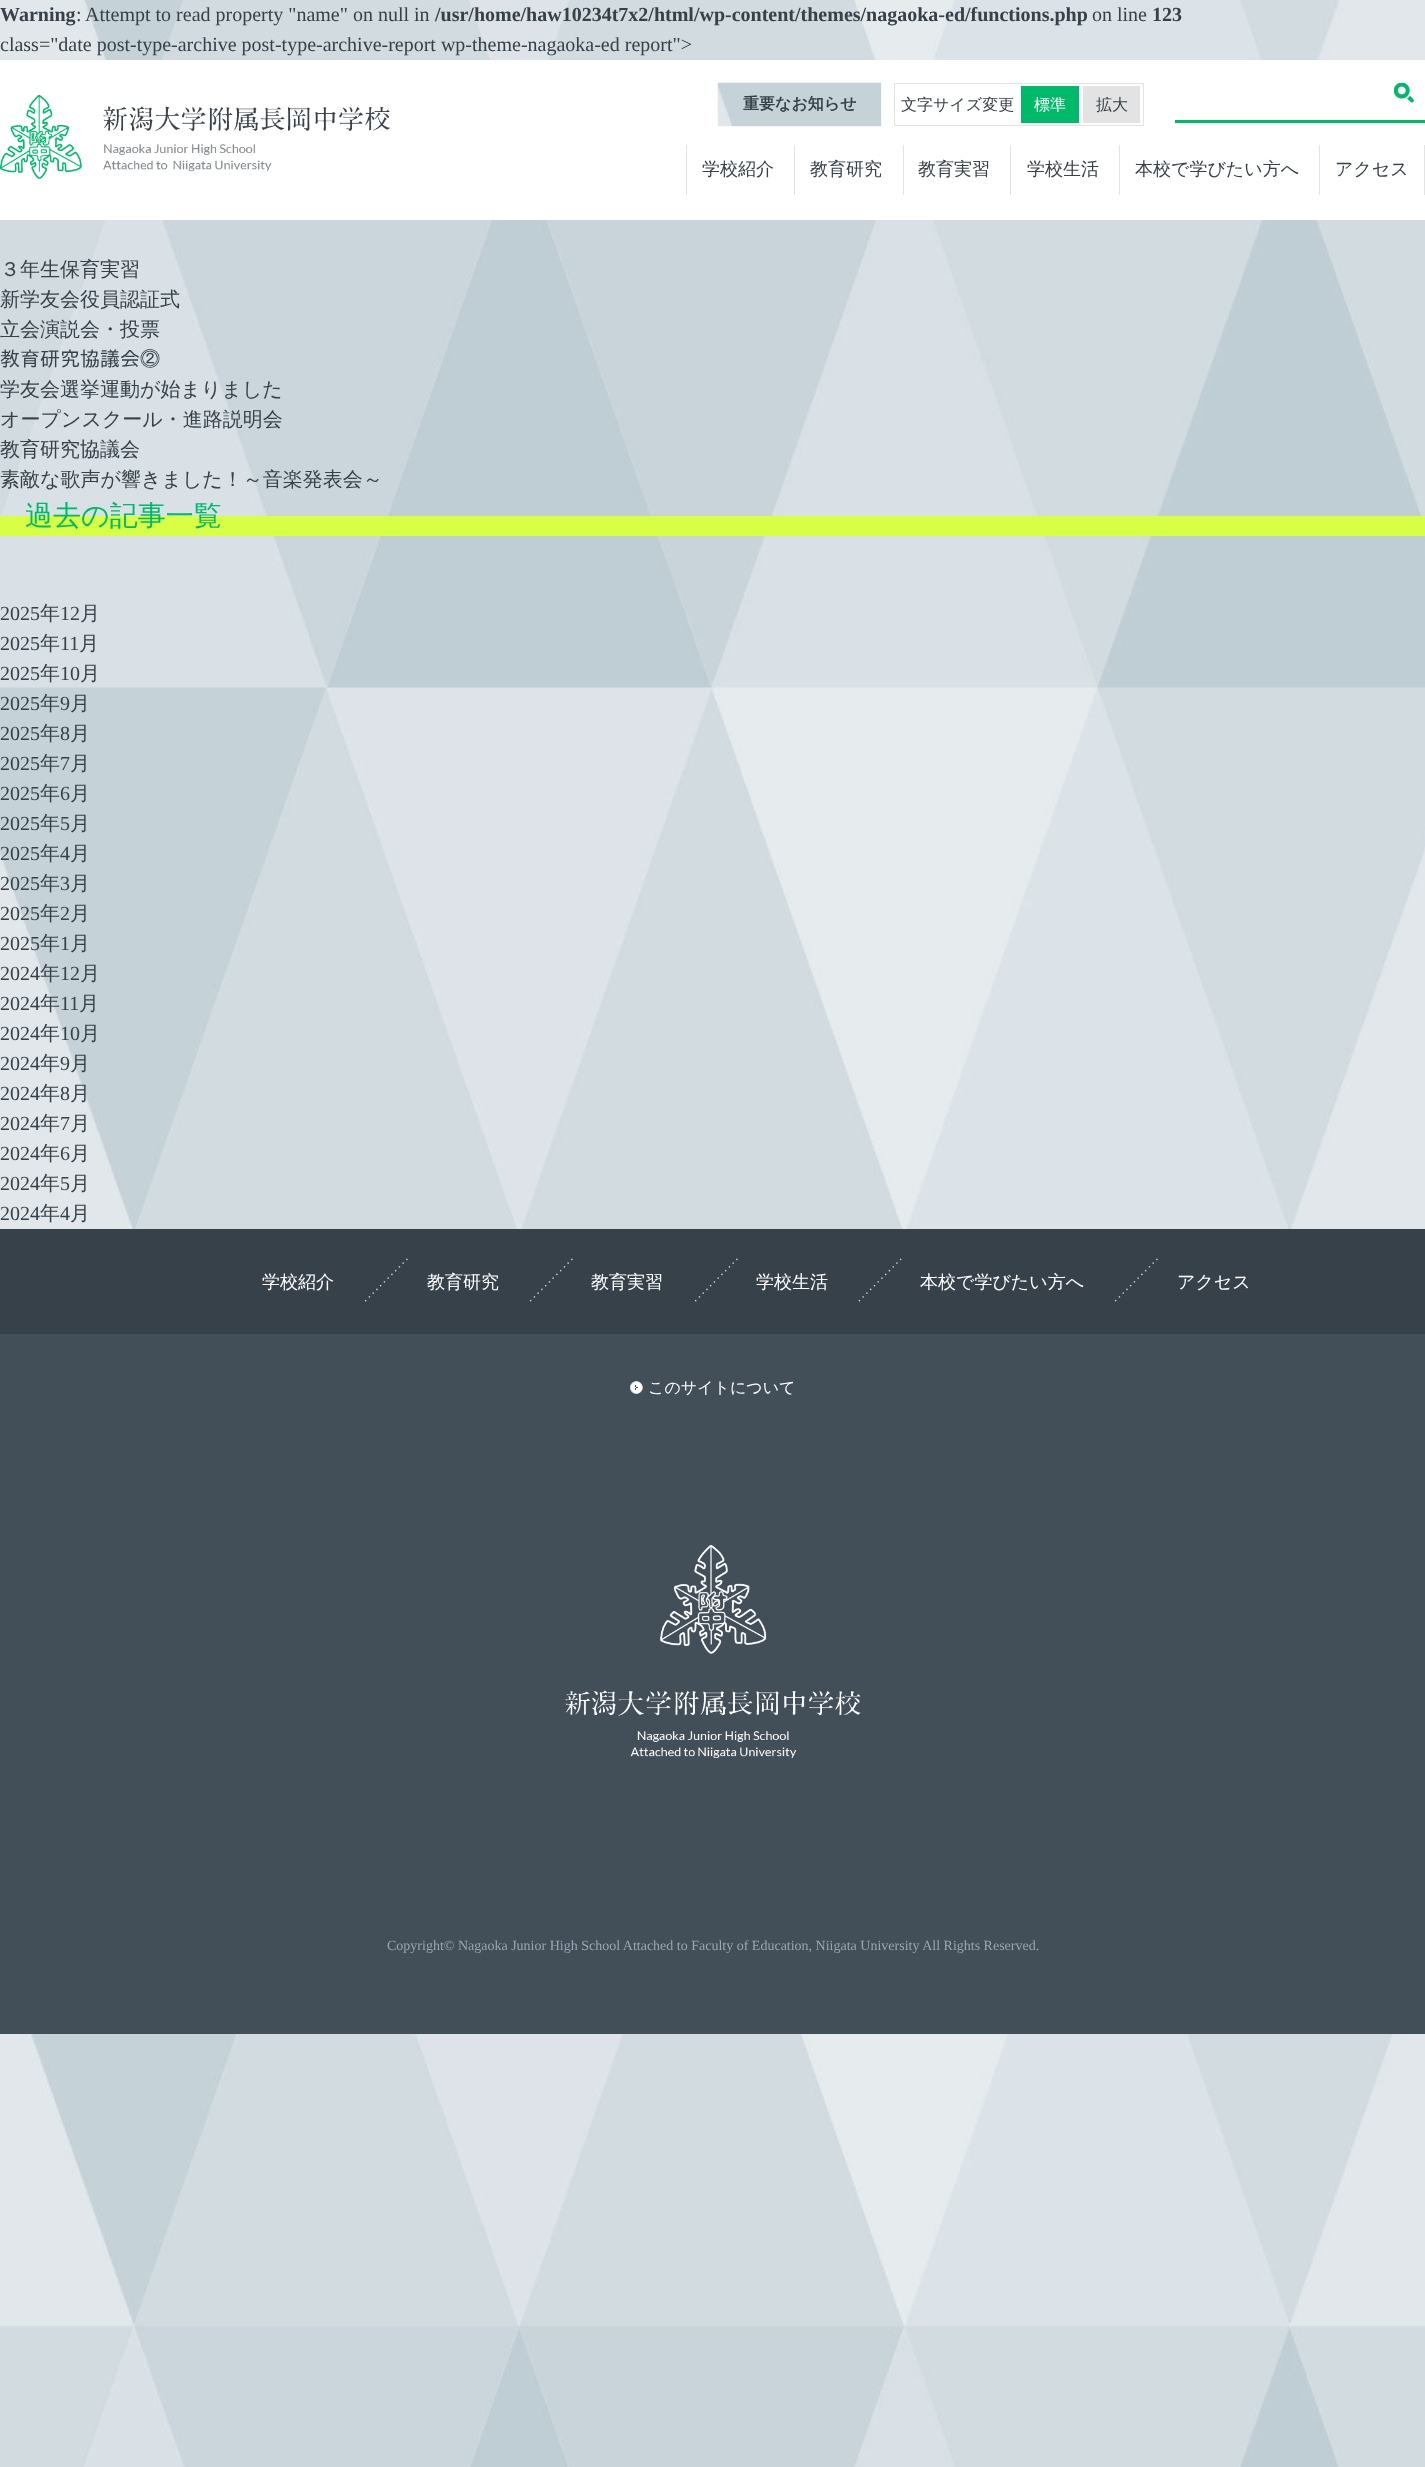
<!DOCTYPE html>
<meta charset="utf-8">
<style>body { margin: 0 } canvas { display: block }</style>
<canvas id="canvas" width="1425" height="2467"></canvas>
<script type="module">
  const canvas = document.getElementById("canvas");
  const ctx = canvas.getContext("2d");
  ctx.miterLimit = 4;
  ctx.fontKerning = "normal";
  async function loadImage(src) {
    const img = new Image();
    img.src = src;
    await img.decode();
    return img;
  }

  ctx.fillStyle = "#ffffff";
  ctx.fillRect(0, 0, 1425, 2467);
  ctx.drawImage(await loadImage("img1.png"), 0, 0, 1425, 2467);
  ctx.font = "bold 20px Liberation Serif";
  ctx.fillStyle = "#374149";
  ctx.fillText("Warning", 0, 21);
  ctx.font = "20px Liberation Serif";
  ctx.fillText(":", 76, 21);
  ctx.fillText("Attempt to read property \"name\" on null in", 85, 21);
  ctx.font = "bold 20px Liberation Serif";
  ctx.fillText("/usr/home/haw10234t7x2/html/wp-content/themes/nagaoka-ed/functions.php", 435, 21);
  ctx.font = "20px Liberation Serif";
  ctx.fillText("on line", 1092, 21);
  ctx.font = "bold 20px Liberation Serif";
  ctx.fillText("123", 1152, 21);
  ctx.font = "20px Liberation Serif";
  ctx.fillText("class=\"date post-type-archive post-type-archive-report wp-theme-nagaoka-ed report\">", 0, 51);
  ctx.fillStyle = "#ffffff";
  ctx.fillRect(0, 60, 1425, 160);
  ctx.drawImage(await loadImage("img2.png"), 0, 95, 391, 84);
  ctx.drawImage(await loadImage("img3.png"), 717, 82, 165, 45);
  ctx.font = "bold 16px WenQuanYi Zen Hei";
  ctx.fillStyle = "#374149";
  ctx.fillText("重要なお知らせ", 743, 109);
  ctx.strokeStyle = "#e3e3e3";
  ctx.strokeRect(894.5, 83.5, 249, 42);
  ctx.font = "500 16px WenQuanYi Zen Hei";
  ctx.fillText("文字サイズ変更", 901, 110);
  ctx.fillStyle = "#00ba69";
  ctx.fillRect(1021, 86, 58, 37);
  ctx.fillStyle = "#ffffff";
  ctx.fillText("標準", 1034, 110);
  ctx.fillStyle = "#e3e3e3";
  ctx.fillRect(1083, 86, 57, 37);
  ctx.fillStyle = "#374149";
  ctx.fillText("拡大", 1096, 110);
  ctx.drawImage(await loadImage("img4.png"), 1394, 83, 20, 20);
  ctx.fillStyle = "#00ba69";
  ctx.fillRect(1175, 120, 250, 3);
  ctx.fillStyle = "#e3e3e3";
  ctx.fillRect(686, 145, 1, 50);
  ctx.font = "500 18px WenQuanYi Zen Hei";
  ctx.fillStyle = "#374149";
  ctx.fillText("学校紹介", 702, 175);
  ctx.fillStyle = "#e3e3e3";
  ctx.fillRect(794, 145, 1, 50);
  ctx.fillStyle = "#374149";
  ctx.fillText("教育研究", 810, 175);
  ctx.fillStyle = "#e3e3e3";
  ctx.fillRect(903, 145, 1, 50);
  ctx.fillStyle = "#374149";
  ctx.fillText("教育実習", 918, 175);
  ctx.fillStyle = "#e3e3e3";
  ctx.fillRect(1010, 145, 1, 50);
  ctx.fillStyle = "#374149";
  ctx.fillText("学校生活", 1027, 175);
  ctx.fillStyle = "#e3e3e3";
  ctx.fillRect(1119, 145, 1, 50);
  ctx.fillStyle = "#374149";
  ctx.fillText("本校で学びたい方へ", 1135, 175);
  ctx.fillStyle = "#e3e3e3";
  ctx.fillRect(1424, 145, 1, 50);
  ctx.fillRect(1319, 145, 1, 50);
  ctx.fillStyle = "#374149";
  ctx.fillText("アクセス", 1335, 175);
  ctx.font = "500 20px WenQuanYi Zen Hei";
  ctx.fillText("３年生保育実習", 0, 276);
  ctx.fillText("新学友会役員認証式", 0, 306);
  ctx.fillText("立会演説会・投票", 0, 336);
  ctx.font = "20px IPAPGothic";
  ctx.fillText("教育研究協議会⓶", 0, 366);
  ctx.font = "500 20px WenQuanYi Zen Hei";
  ctx.fillText("学友会選挙運動が始まりました", 0, 396);
  ctx.fillText("オープンスクール・進路説明会", 0, 426);
  ctx.fillText("教育研究協議会", 0, 456);
  ctx.fillText("素敵な歌声が響きました！～音楽発表会～", 0, 486);
  ctx.fillStyle = "#d8ff43";
  ctx.fillRect(0, 516, 1425, 20);
  ctx.font = "500 28px WenQuanYi Zen Hei";
  ctx.fillStyle = "#00ba69";
  ctx.fillText("過去の記事一覧", 25, 525);
  ctx.font = "20px Liberation Serif";
  ctx.fillStyle = "#374149";
  ctx.fillText("2025", 0, 620);
  ctx.font = "500 20px WenQuanYi Zen Hei";
  ctx.fillText("年", 40, 620);
  ctx.font = "20px Liberation Serif";
  ctx.fillText("12", 60, 620);
  ctx.font = "500 20px WenQuanYi Zen Hei";
  ctx.fillText("月", 80, 620);
  ctx.font = "20px Liberation Serif";
  ctx.fillText("2025", 0, 650);
  ctx.font = "500 20px WenQuanYi Zen Hei";
  ctx.fillText("年", 40, 650);
  ctx.font = "20px Liberation Serif";
  ctx.fillText("11", 60, 650);
  ctx.font = "500 20px WenQuanYi Zen Hei";
  ctx.fillText("月", 79, 650);
  ctx.font = "20px Liberation Serif";
  ctx.fillText("2025", 0, 680);
  ctx.font = "500 20px WenQuanYi Zen Hei";
  ctx.fillText("年", 40, 680);
  ctx.font = "20px Liberation Serif";
  ctx.fillText("10", 60, 680);
  ctx.font = "500 20px WenQuanYi Zen Hei";
  ctx.fillText("月", 80, 680);
  ctx.font = "20px Liberation Serif";
  ctx.fillText("2025", 0, 710);
  ctx.font = "500 20px WenQuanYi Zen Hei";
  ctx.fillText("年", 40, 710);
  ctx.font = "20px Liberation Serif";
  ctx.fillText("9", 60, 710);
  ctx.font = "500 20px WenQuanYi Zen Hei";
  ctx.fillText("月", 70, 710);
  ctx.font = "20px Liberation Serif";
  ctx.fillText("2025", 0, 740);
  ctx.font = "500 20px WenQuanYi Zen Hei";
  ctx.fillText("年", 40, 740);
  ctx.font = "20px Liberation Serif";
  ctx.fillText("8", 60, 740);
  ctx.font = "500 20px WenQuanYi Zen Hei";
  ctx.fillText("月", 70, 740);
  ctx.font = "20px Liberation Serif";
  ctx.fillText("2025", 0, 770);
  ctx.font = "500 20px WenQuanYi Zen Hei";
  ctx.fillText("年", 40, 770);
  ctx.font = "20px Liberation Serif";
  ctx.fillText("7", 60, 770);
  ctx.font = "500 20px WenQuanYi Zen Hei";
  ctx.fillText("月", 70, 770);
  ctx.font = "20px Liberation Serif";
  ctx.fillText("2025", 0, 800);
  ctx.font = "500 20px WenQuanYi Zen Hei";
  ctx.fillText("年", 40, 800);
  ctx.font = "20px Liberation Serif";
  ctx.fillText("6", 60, 800);
  ctx.font = "500 20px WenQuanYi Zen Hei";
  ctx.fillText("月", 70, 800);
  ctx.font = "20px Liberation Serif";
  ctx.fillText("2025", 0, 830);
  ctx.font = "500 20px WenQuanYi Zen Hei";
  ctx.fillText("年", 40, 830);
  ctx.font = "20px Liberation Serif";
  ctx.fillText("5", 60, 830);
  ctx.font = "500 20px WenQuanYi Zen Hei";
  ctx.fillText("月", 70, 830);
  ctx.font = "20px Liberation Serif";
  ctx.fillText("2025", 0, 860);
  ctx.font = "500 20px WenQuanYi Zen Hei";
  ctx.fillText("年", 40, 860);
  ctx.font = "20px Liberation Serif";
  ctx.fillText("4", 60, 860);
  ctx.font = "500 20px WenQuanYi Zen Hei";
  ctx.fillText("月", 70, 860);
  ctx.font = "20px Liberation Serif";
  ctx.fillText("2025", 0, 890);
  ctx.font = "500 20px WenQuanYi Zen Hei";
  ctx.fillText("年", 40, 890);
  ctx.font = "20px Liberation Serif";
  ctx.fillText("3", 60, 890);
  ctx.font = "500 20px WenQuanYi Zen Hei";
  ctx.fillText("月", 70, 890);
  ctx.font = "20px Liberation Serif";
  ctx.fillText("2025", 0, 920);
  ctx.font = "500 20px WenQuanYi Zen Hei";
  ctx.fillText("年", 40, 920);
  ctx.font = "20px Liberation Serif";
  ctx.fillText("2", 60, 920);
  ctx.font = "500 20px WenQuanYi Zen Hei";
  ctx.fillText("月", 70, 920);
  ctx.font = "20px Liberation Serif";
  ctx.fillText("2025", 0, 950);
  ctx.font = "500 20px WenQuanYi Zen Hei";
  ctx.fillText("年", 40, 950);
  ctx.font = "20px Liberation Serif";
  ctx.fillText("1", 60, 950);
  ctx.font = "500 20px WenQuanYi Zen Hei";
  ctx.fillText("月", 70, 950);
  ctx.font = "20px Liberation Serif";
  ctx.fillText("2024", 0, 980);
  ctx.font = "500 20px WenQuanYi Zen Hei";
  ctx.fillText("年", 40, 980);
  ctx.font = "20px Liberation Serif";
  ctx.fillText("12", 60, 980);
  ctx.font = "500 20px WenQuanYi Zen Hei";
  ctx.fillText("月", 80, 980);
  ctx.font = "20px Liberation Serif";
  ctx.fillText("2024", 0, 1010);
  ctx.font = "500 20px WenQuanYi Zen Hei";
  ctx.fillText("年", 40, 1010);
  ctx.font = "20px Liberation Serif";
  ctx.fillText("11", 60, 1010);
  ctx.font = "500 20px WenQuanYi Zen Hei";
  ctx.fillText("月", 79, 1010);
  ctx.font = "20px Liberation Serif";
  ctx.fillText("2024", 0, 1040);
  ctx.font = "500 20px WenQuanYi Zen Hei";
  ctx.fillText("年", 40, 1040);
  ctx.font = "20px Liberation Serif";
  ctx.fillText("10", 60, 1040);
  ctx.font = "500 20px WenQuanYi Zen Hei";
  ctx.fillText("月", 80, 1040);
  ctx.font = "20px Liberation Serif";
  ctx.fillText("2024", 0, 1070);
  ctx.font = "500 20px WenQuanYi Zen Hei";
  ctx.fillText("年", 40, 1070);
  ctx.font = "20px Liberation Serif";
  ctx.fillText("9", 60, 1070);
  ctx.font = "500 20px WenQuanYi Zen Hei";
  ctx.fillText("月", 70, 1070);
  ctx.font = "20px Liberation Serif";
  ctx.fillText("2024", 0, 1100);
  ctx.font = "500 20px WenQuanYi Zen Hei";
  ctx.fillText("年", 40, 1100);
  ctx.font = "20px Liberation Serif";
  ctx.fillText("8", 60, 1100);
  ctx.font = "500 20px WenQuanYi Zen Hei";
  ctx.fillText("月", 70, 1100);
  ctx.font = "20px Liberation Serif";
  ctx.fillText("2024", 0, 1130);
  ctx.font = "500 20px WenQuanYi Zen Hei";
  ctx.fillText("年", 40, 1130);
  ctx.font = "20px Liberation Serif";
  ctx.fillText("7", 60, 1130);
  ctx.font = "500 20px WenQuanYi Zen Hei";
  ctx.fillText("月", 70, 1130);
  ctx.font = "20px Liberation Serif";
  ctx.fillText("2024", 0, 1160);
  ctx.font = "500 20px WenQuanYi Zen Hei";
  ctx.fillText("年", 40, 1160);
  ctx.font = "20px Liberation Serif";
  ctx.fillText("6", 60, 1160);
  ctx.font = "500 20px WenQuanYi Zen Hei";
  ctx.fillText("月", 70, 1160);
  ctx.font = "20px Liberation Serif";
  ctx.fillText("2024", 0, 1190);
  ctx.font = "500 20px WenQuanYi Zen Hei";
  ctx.fillText("年", 40, 1190);
  ctx.font = "20px Liberation Serif";
  ctx.fillText("5", 60, 1190);
  ctx.font = "500 20px WenQuanYi Zen Hei";
  ctx.fillText("月", 70, 1190);
  ctx.font = "20px Liberation Serif";
  ctx.fillText("2024", 0, 1220);
  ctx.font = "500 20px WenQuanYi Zen Hei";
  ctx.fillText("年", 40, 1220);
  ctx.font = "20px Liberation Serif";
  ctx.fillText("4", 60, 1220);
  ctx.font = "500 20px WenQuanYi Zen Hei";
  ctx.fillText("月", 70, 1220);
  ctx.fillRect(0, 1229, 1425, 105);
  ctx.font = "500 18px WenQuanYi Zen Hei";
  ctx.fillStyle = "#ffffff";
  ctx.fillText("学校紹介", 262, 1288);
  ctx.drawImage(await loadImage("img5.png"), 364, 1258, 44, 44);
  ctx.fillText("教育研究", 427, 1288);
  ctx.drawImage(await loadImage("img6.png"), 529, 1258, 44, 44);
  ctx.fillText("教育実習", 591, 1288);
  ctx.drawImage(await loadImage("img5.png"), 694, 1258, 44, 44);
  ctx.fillText("学校生活", 756, 1288);
  ctx.drawImage(await loadImage("img7.png"), 858, 1258, 44, 44);
  ctx.fillText("本校で学びたい方へ", 920, 1288);
  ctx.drawImage(await loadImage("img5.png"), 1114, 1258, 44, 44);
  ctx.fillText("アクセス", 1177, 1288);
  ctx.fillStyle = "#424e58";
  ctx.fillRect(0, 1334, 1425, 700);
  ctx.drawImage(await loadImage("img8.png"), 630, 1381, 13, 13);
  ctx.font = "500 16px WenQuanYi Zen Hei";
  ctx.fillStyle = "#ffffff";
  ctx.fillText("このサイトについて", 648, 1393);
  ctx.drawImage(await loadImage("img9.png"), 565, 1545, 296, 213);
  ctx.font = "14px Liberation Serif";
  ctx.fillStyle = "#99a7b3";
  ctx.fillText("Copyright© Nagaoka Junior High School Attached to Faculty of Education, Niigata University All Rights Reserved.", 387, 1950);
</script>
